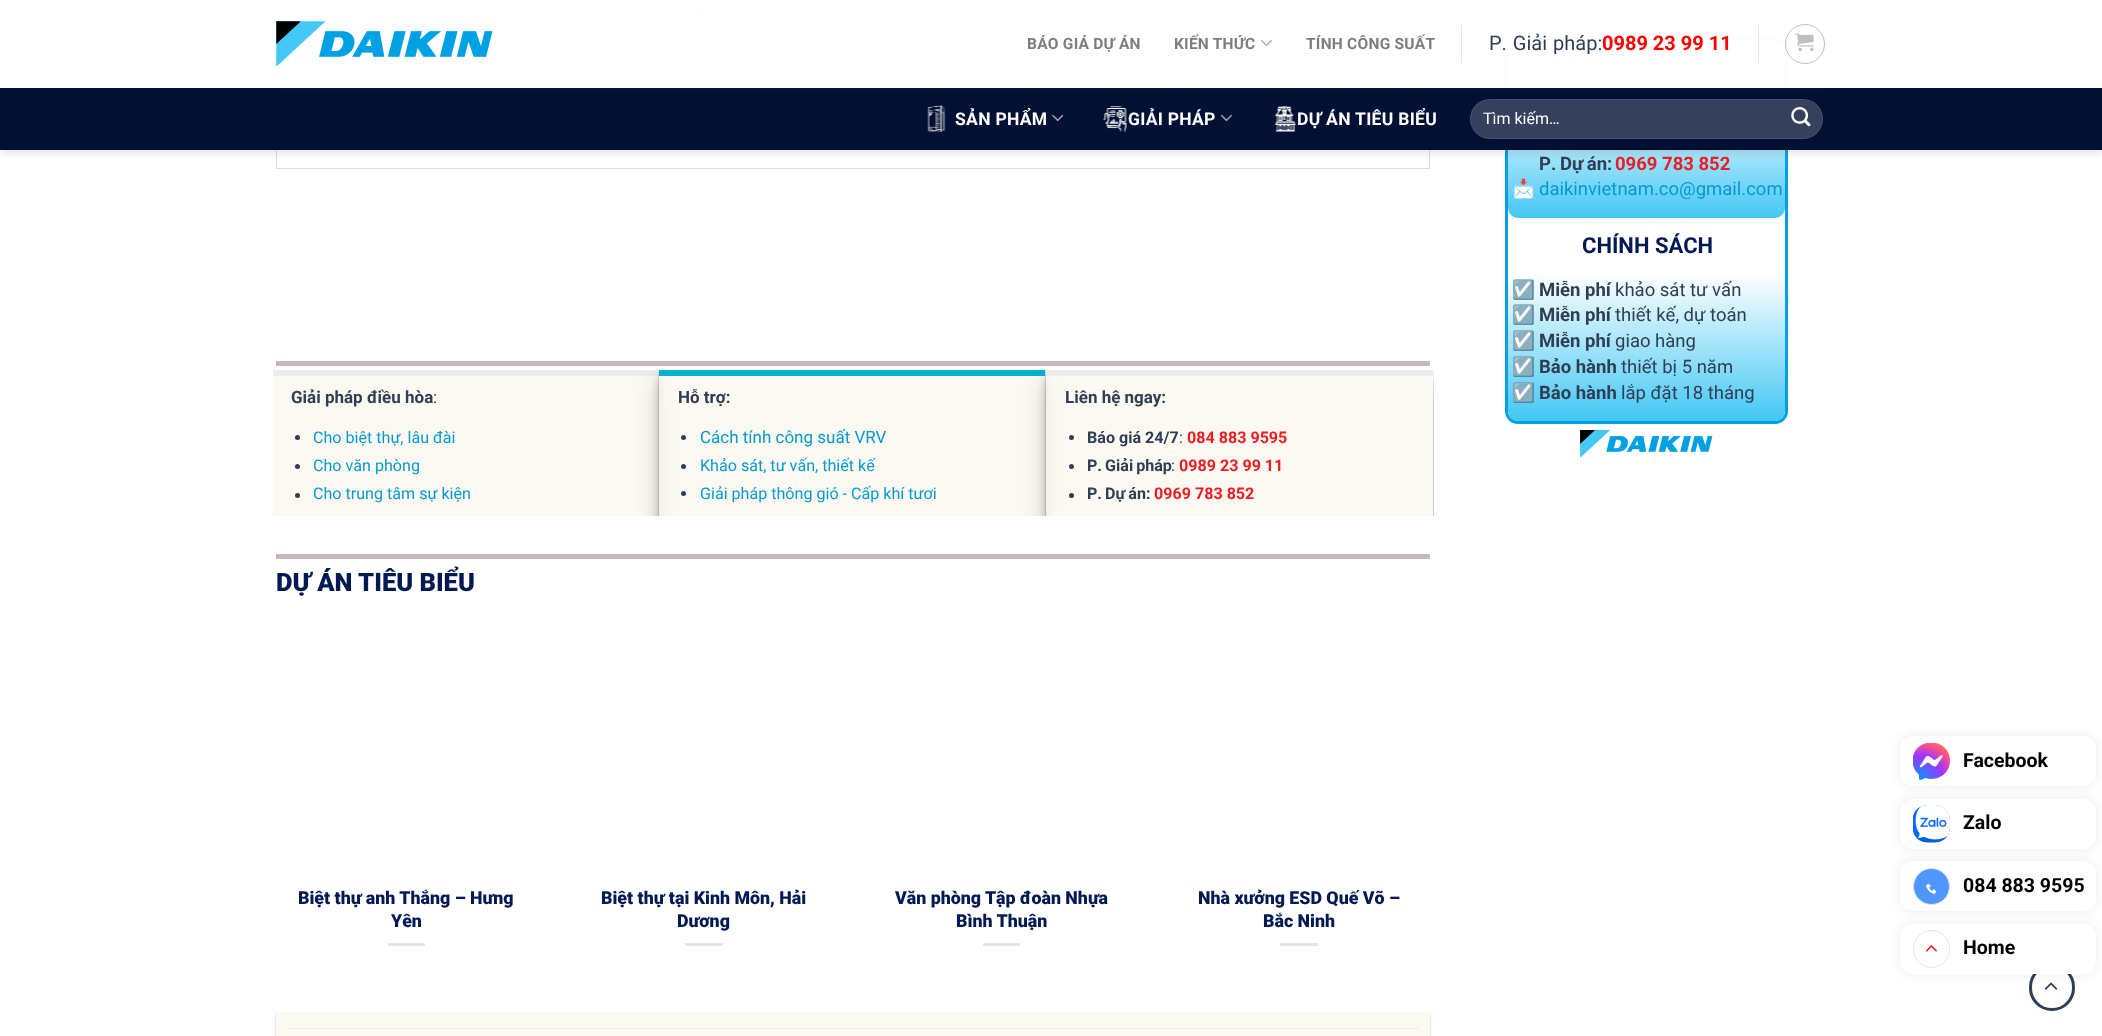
<!DOCTYPE html>
<meta charset="utf-8">
<style>body { margin: 0 } canvas { display: block }</style>
<canvas id="canvas" width="2102" height="1036"></canvas>
<script type="module">
  const canvas = document.getElementById("canvas");
  const ctx = canvas.getContext("2d");
  ctx.miterLimit = 4;
  ctx.fontKerning = "normal";
  async function loadImage(src) {
    const img = new Image();
    img.src = src;
    await img.decode();
    return img;
  }
  let gradient;

  ctx.fillStyle = "#ffffff";
  ctx.fillRect(0, 0, 2102, 1036);
  ctx.beginPath();
  ctx.roundRect(1506.5, 39.5, 280, 383, 11.5);
  ctx.strokeStyle = "#00a1e4";
  ctx.lineWidth = 3;
  ctx.stroke();
  gradient = ctx.createLinearGradient(1646, 95, 1646, 218);
  gradient.addColorStop(0, "#ffffff");
  gradient.addColorStop(1, "#42c7f4");
  ctx.fillStyle = gradient;
  ctx.beginPath();
  ctx.roundRect(1508, 95, 277, 123, 10);
  ctx.fill();
  ctx.strokeStyle = "#dddddd";
  ctx.lineWidth = 1;
  ctx.strokeRect(276.5, -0.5, 1153, 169);
  ctx.fillStyle = "#9d9d9d";
  ctx.fillRect(1390, 0, 1, 54);
  ctx.fillRect(315, 53, 1076, 1);
  ctx.fillStyle = "#ececec";
  ctx.fillRect(315, 0, 1, 54);
  ctx.fillRect(614, 0, 1, 10);
  ctx.fillRect(316, 9, 299, 1);
  ctx.fillStyle = "#9d9d9d";
  ctx.fillRect(316, 0, 1, 10);
  ctx.fillStyle = "#ececec";
  ctx.fillRect(701, 0, 1, 10);
  ctx.fillRect(615, 9, 88, 1);
  ctx.fillStyle = "#9d9d9d";
  ctx.fillRect(615, 0, 1, 10);
  ctx.fillStyle = "#ececec";
  ctx.fillRect(1146, 0, 1, 10);
  ctx.fillRect(703, 9, 445, 1);
  ctx.fillStyle = "#9d9d9d";
  ctx.fillRect(703, 0, 1, 10);
  ctx.fillRect(316, 10, 832, 1);
  ctx.fillStyle = "#ececec";
  ctx.fillRect(701, 10, 1, 43);
  ctx.fillRect(316, 51, 387, 1);
  ctx.fillStyle = "#9d9d9d";
  ctx.fillRect(316, 10, 1, 43);
  ctx.fillStyle = "#ececec";
  ctx.fillRect(1146, 10, 1, 43);
  ctx.fillRect(703, 51, 445, 1);
  ctx.fillStyle = "#9d9d9d";
  ctx.fillRect(703, 10, 1, 43);
  ctx.save();
  ctx.beginPath();
  ctx.rect(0, 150, 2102, 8);
  ctx.clip();
  ctx.fillStyle = "rgba(0, 0, 0, 0.15)";
  ctx.filter = "blur(6px)";
  ctx.beginPath();
  ctx.rect(1, 1, 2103, 150);
  ctx.fill();
  ctx.filter = "none";
  ctx.restore();
  ctx.fillStyle = "rgba(255, 255, 255, 0.98)";
  ctx.fillRect(276, 0, 1512, 88);
  ctx.drawImage(await loadImage("img1.png"), 276, 21, 217, 45);
  ctx.letterSpacing = "0.25px";
  ctx.font = "bold 15.5px Roboto";
  ctx.fillStyle = "#7d7d7d";
  ctx.fillText("BÁO GIÁ DỰ ÁN", 1027, 49);
  ctx.fillText("KIẾN THỨC", 1174, 49);
  ctx.drawImage(await loadImage("img2.png"), 1261, 39, 11, 8);
  ctx.fillText("TÍNH CÔNG SUẤT", 1306, 49);
  ctx.fillStyle = "#e6e6e6";
  ctx.fillRect(1461, 25, 1, 38);
  ctx.letterSpacing = "0px";
  ctx.wordSpacing = "1px";
  ctx.font = "20px Roboto";
  ctx.fillStyle = "#303e54";
  ctx.fillText("P. Giải pháp:", 1489, 50);
  ctx.wordSpacing = "0px";
  ctx.font = "bold 20px Roboto";
  ctx.fillStyle = "#ff0000";
  ctx.fillText("0989 23 99 11", 1602, 50);
  ctx.fillStyle = "rgba(0, 0, 0, 0.1)";
  ctx.fillRect(1758, 25, 1, 38);
  ctx.beginPath();
  ctx.arc(1805, 44, 19.5, 0, Math.PI * 2);
  ctx.strokeStyle = "#c0c0c0";
  ctx.stroke();
  ctx.drawImage(await loadImage("img3.png"), 1795, 33, 19, 19);
  ctx.fillStyle = "#011033";
  ctx.fillRect(0, 88, 2102, 62);
  ctx.fillStyle = "#061536";
  ctx.fillRect(276, 88, 1550, 1);
  ctx.drawImage(await loadImage("img4.png"), 927, 105, 19, 28);
  ctx.letterSpacing = "0.3px";
  ctx.font = "bold 17.5px Roboto";
  ctx.fillStyle = "#ffffff";
  ctx.fillText("SẢN PHẨM", 955, 125);
  ctx.drawImage(await loadImage("img5.png"), 1052, 114, 12, 8);
  ctx.drawImage(await loadImage("img6.png"), 1103, 106, 24, 26);
  ctx.fillText("GIẢI PHÁP", 1128, 125);
  ctx.drawImage(await loadImage("img7.png"), 1220, 114, 12, 8);
  ctx.drawImage(await loadImage("img8.png"), 1274, 106, 22, 26);
  ctx.fillText("DỰ ÁN TIÊU BIỂU", 1297, 125);
  ctx.fillStyle = "#34405c";
  ctx.beginPath();
  ctx.roundRect(1470, 99, 353, 40, 20);
  ctx.fill();
  ctx.beginPath();
  ctx.roundRect(1470.5, 99.5, 352, 39, 19.5);
  ctx.strokeStyle = "rgba(255, 255, 255, 0.09)";
  ctx.stroke();
  ctx.letterSpacing = "0px";
  ctx.font = "16px Roboto";
  ctx.fillStyle = "#ffffff";
  ctx.fillText("Tìm kiếm…", 1483, 124);
  ctx.drawImage(await loadImage("img9.png"), 1791, 107, 20, 20);
  ctx.wordSpacing = "-1px";
  ctx.font = "bold 18.5px Roboto";
  ctx.fillStyle = "#303e54";
  ctx.fillText("P. Dự án:", 1539, 170);
  ctx.wordSpacing = "0px";
  ctx.fillStyle = "#ed1c24";
  ctx.fillText("0969 783 852", 1615, 170);
  ctx.font = "18.5px Noto Color Emoji";
  ctx.fillStyle = "#303e54";
  ctx.fillText("📩", 1512, 195);
  ctx.font = "18.5px Roboto";
  ctx.fillStyle = "#069acf";
  ctx.fillText("daikinvietnam.co@gmail.com", 1539, 195);
  ctx.font = "bold 22px Roboto";
  ctx.fillStyle = "#021954";
  ctx.fillText("CHÍNH SÁCH", 1582, 253);
  gradient = ctx.createLinearGradient(1646, 274, 1646, 421);
  gradient.addColorStop(0, "#ffffff");
  gradient.addColorStop(1, "#42c7f4");
  ctx.fillStyle = gradient;
  ctx.beginPath();
  ctx.roundRect(1508, 274, 277, 147, 10);
  ctx.fill();
  ctx.font = "18.5px Noto Color Emoji";
  ctx.fillStyle = "#303e54";
  ctx.fillText("☑️", 1512, 296);
  ctx.font = "bold 18.5px Roboto";
  ctx.fillText("Miễn phí", 1539, 296);
  ctx.font = "18.5px Roboto";
  ctx.fillText("khảo sát tư vấn", 1615, 296);
  ctx.font = "18.5px Noto Color Emoji";
  ctx.fillText("☑️", 1512, 321);
  ctx.font = "bold 18.5px Roboto";
  ctx.fillText("Miễn phí", 1539, 321);
  ctx.font = "18.5px Roboto";
  ctx.fillText("thiết kế, dự toán", 1615, 321);
  ctx.font = "18.5px Noto Color Emoji";
  ctx.fillText("☑️", 1512, 347);
  ctx.font = "bold 18.5px Roboto";
  ctx.fillText("Miễn phí", 1539, 347);
  ctx.font = "18.5px Roboto";
  ctx.fillText("giao hàng", 1615, 347);
  ctx.font = "18.5px Noto Color Emoji";
  ctx.fillText("☑️", 1512, 373);
  ctx.font = "bold 18.5px Roboto";
  ctx.fillText("Bảo hành", 1539, 373);
  ctx.font = "18.5px Roboto";
  ctx.fillText("thiết bị 5 năm", 1621, 373);
  ctx.font = "18.5px Noto Color Emoji";
  ctx.fillText("☑️", 1512, 399);
  ctx.font = "bold 18.5px Roboto";
  ctx.fillText("Bảo hành", 1539, 399);
  ctx.font = "18.5px Roboto";
  ctx.fillText("lắp đặt 18 tháng", 1621, 399);
  ctx.drawImage(await loadImage("img10.png"), 1580, 430, 133, 28);
  ctx.fillStyle = "#c8b9b9";
  ctx.fillRect(276, 361, 1154, 5);
  ctx.save();
  ctx.beginPath();
  ctx.rect(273, 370, 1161, 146);
  ctx.clip();
  ctx.beginPath();
  ctx.rect(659, 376, 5, 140);
  ctx.clip();
  ctx.fillStyle = "rgba(0, 0, 0, 0.22)";
  ctx.filter = "blur(4px)";
  ctx.beginPath();
  ctx.rect(273, 378, 386, 166);
  ctx.fill();
  ctx.filter = "none";
  ctx.restore();
  ctx.save();
  ctx.beginPath();
  ctx.rect(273, 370, 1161, 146);
  ctx.clip();
  ctx.beginPath();
  ctx.rect(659, 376, 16, 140);
  ctx.clip();
  ctx.fillStyle = "rgba(0, 0, 0, 0.19)";
  ctx.filter = "blur(12.5px)";
  ctx.beginPath();
  ctx.rect(273, 383, 386, 166);
  ctx.fill();
  ctx.filter = "none";
  ctx.restore();
  ctx.fillStyle = "rgba(251, 248, 240, 0.8)";
  ctx.fillRect(273, 376, 385, 140);
  ctx.fillStyle = "#ececec";
  ctx.fillRect(273, 370, 386, 6);
  ctx.font = "bold 17px Roboto";
  ctx.fillStyle = "#303e54";
  ctx.fillText("Giải pháp điều hòa", 291, 403);
  ctx.font = "17px Roboto";
  ctx.fillText(":", 433, 403);
  ctx.beginPath();
  ctx.arc(297.5, 437.5, 2.5, 0, Math.PI * 2);
  ctx.fill();
  ctx.font = "16.1px Roboto";
  ctx.fillStyle = "#069acf";
  ctx.fillText("Cho biệt thự, lâu đài", 313, 443);
  ctx.fillStyle = "#303e54";
  ctx.beginPath();
  ctx.arc(297.5, 466.5, 2.5, 0, Math.PI * 2);
  ctx.fill();
  ctx.fillStyle = "#069acf";
  ctx.fillText("Cho văn phòng", 313, 471);
  ctx.fillStyle = "#303e54";
  ctx.beginPath();
  ctx.arc(297.5, 495.5, 2.5, 0, Math.PI * 2);
  ctx.fill();
  ctx.fillStyle = "#069acf";
  ctx.fillText("Cho trung tâm sự kiện", 313, 499);
  ctx.fillStyle = "#dddddd";
  ctx.fillRect(658, 370, 1, 146);
  ctx.save();
  ctx.beginPath();
  ctx.rect(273, 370, 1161, 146);
  ctx.clip();
  ctx.beginPath();
  ctx.moveTo(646, 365);
  ctx.lineTo(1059, 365);
  ctx.lineTo(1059, 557);
  ctx.lineTo(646, 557);
  ctx.closePath();
  ctx.moveTo(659, 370);
  ctx.lineTo(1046, 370);
  ctx.lineTo(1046, 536);
  ctx.lineTo(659, 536);
  ctx.closePath();
  ctx.clip("evenodd");
  ctx.fillStyle = "rgba(0, 0, 0, 0.22)";
  ctx.filter = "blur(4px)";
  ctx.beginPath();
  ctx.rect(659, 378, 387, 166);
  ctx.fill();
  ctx.filter = "none";
  ctx.restore();
  ctx.save();
  ctx.beginPath();
  ctx.rect(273, 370, 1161, 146);
  ctx.clip();
  ctx.beginPath();
  ctx.moveTo(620, 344);
  ctx.lineTo(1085, 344);
  ctx.lineTo(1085, 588);
  ctx.lineTo(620, 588);
  ctx.closePath();
  ctx.moveTo(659, 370);
  ctx.lineTo(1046, 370);
  ctx.lineTo(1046, 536);
  ctx.lineTo(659, 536);
  ctx.closePath();
  ctx.clip("evenodd");
  ctx.fillStyle = "rgba(0, 0, 0, 0.19)";
  ctx.filter = "blur(12.5px)";
  ctx.beginPath();
  ctx.rect(659, 383, 387, 166);
  ctx.fill();
  ctx.filter = "none";
  ctx.restore();
  ctx.fillStyle = "rgba(251, 248, 240, 0.8)";
  ctx.fillRect(659, 376, 386, 140);
  ctx.fillStyle = "#00b2d0";
  ctx.fillRect(659, 370, 387, 6);
  ctx.font = "bold 17px Roboto";
  ctx.fillStyle = "#303e54";
  ctx.fillText("Hỗ trợ:", 678, 403);
  ctx.beginPath();
  ctx.arc(683.5, 437.5, 2.5, 0, Math.PI * 2);
  ctx.fill();
  ctx.font = "17px Roboto";
  ctx.fillStyle = "#069acf";
  ctx.fillText("Cách tính công suất VRV", 700, 443);
  ctx.fillStyle = "#303e54";
  ctx.beginPath();
  ctx.arc(683.5, 466.5, 2.5, 0, Math.PI * 2);
  ctx.fill();
  ctx.font = "16.1px Roboto";
  ctx.fillStyle = "#069acf";
  ctx.fillText("Khảo sát, tư vấn, thiết kế", 700, 471);
  ctx.fillStyle = "#303e54";
  ctx.beginPath();
  ctx.arc(683.5, 493.5, 2.5, 0, Math.PI * 2);
  ctx.fill();
  ctx.fillStyle = "#069acf";
  ctx.fillText("Giải pháp thông gió - Cấp khí tươi", 700, 499);
  ctx.fillStyle = "#dddddd";
  ctx.fillRect(1045, 370, 1, 146);
  ctx.save();
  ctx.beginPath();
  ctx.rect(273, 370, 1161, 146);
  ctx.clip();
  ctx.beginPath();
  ctx.moveTo(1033, 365);
  ctx.lineTo(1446, 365);
  ctx.lineTo(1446, 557);
  ctx.lineTo(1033, 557);
  ctx.closePath();
  ctx.moveTo(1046, 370);
  ctx.lineTo(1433, 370);
  ctx.lineTo(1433, 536);
  ctx.lineTo(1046, 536);
  ctx.closePath();
  ctx.clip("evenodd");
  ctx.fillStyle = "rgba(0, 0, 0, 0.22)";
  ctx.filter = "blur(4px)";
  ctx.beginPath();
  ctx.rect(1046, 378, 387, 166);
  ctx.fill();
  ctx.filter = "none";
  ctx.restore();
  ctx.save();
  ctx.beginPath();
  ctx.rect(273, 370, 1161, 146);
  ctx.clip();
  ctx.beginPath();
  ctx.moveTo(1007, 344);
  ctx.lineTo(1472, 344);
  ctx.lineTo(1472, 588);
  ctx.lineTo(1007, 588);
  ctx.closePath();
  ctx.moveTo(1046, 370);
  ctx.lineTo(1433, 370);
  ctx.lineTo(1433, 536);
  ctx.lineTo(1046, 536);
  ctx.closePath();
  ctx.clip("evenodd");
  ctx.fillStyle = "rgba(0, 0, 0, 0.19)";
  ctx.filter = "blur(12.5px)";
  ctx.beginPath();
  ctx.rect(1046, 383, 387, 166);
  ctx.fill();
  ctx.filter = "none";
  ctx.restore();
  ctx.fillStyle = "rgba(251, 248, 240, 0.8)";
  ctx.fillRect(1046, 376, 387, 140);
  ctx.fillStyle = "#ececec";
  ctx.fillRect(1046, 370, 387, 6);
  ctx.font = "bold 17px Roboto";
  ctx.fillStyle = "#303e54";
  ctx.fillText("Liên hệ ngay:", 1065, 403);
  ctx.beginPath();
  ctx.arc(1071.5, 437.5, 2.5, 0, Math.PI * 2);
  ctx.fill();
  ctx.font = "bold 16.1px Roboto";
  ctx.fillText("Báo giá 24/7", 1087, 443);
  ctx.font = "16.1px Roboto";
  ctx.fillText(":", 1179, 443);
  ctx.font = "bold 16.1px Roboto";
  ctx.fillStyle = "#ed1c24";
  ctx.fillText("084 883 9595", 1187, 443);
  ctx.fillStyle = "#303e54";
  ctx.beginPath();
  ctx.arc(1071.5, 466.5, 2.5, 0, Math.PI * 2);
  ctx.fill();
  ctx.wordSpacing = "-1px";
  ctx.fillText("P. Giải pháp", 1087, 471);
  ctx.wordSpacing = "0px";
  ctx.font = "16.1px Roboto";
  ctx.fillText(":", 1171, 471);
  ctx.font = "bold 16.1px Roboto";
  ctx.fillStyle = "#ed1c24";
  ctx.fillText("0989 23 99 11", 1179, 471);
  ctx.fillStyle = "#303e54";
  ctx.beginPath();
  ctx.arc(1071.5, 495.5, 2.5, 0, Math.PI * 2);
  ctx.fill();
  ctx.wordSpacing = "-1px";
  ctx.fillText("P. Dự án:", 1087, 499);
  ctx.wordSpacing = "0px";
  ctx.fillStyle = "#ed1c24";
  ctx.fillText("0969 783 852", 1154, 499);
  ctx.fillStyle = "#c8b9b9";
  ctx.fillRect(276, 554, 1154, 5);
  ctx.font = "900 25.5px Roboto";
  ctx.fillStyle = "#021954";
  ctx.fillText("DỰ ÁN TIÊU BIỂU", 276, 591);
  ctx.font = "900 17.8px Roboto";
  ctx.fillText("Biệt thự anh Thắng – Hưng", 298, 904);
  ctx.fillText("Yên", 391, 927);
  ctx.fillStyle = "#e6e6e6";
  ctx.fillRect(388, 943, 37, 3);
  ctx.fillStyle = "#021954";
  ctx.fillText("Biệt thự tại Kinh Môn, Hải", 601, 904);
  ctx.fillText("Dương", 677, 927);
  ctx.fillStyle = "#e6e6e6";
  ctx.fillRect(685, 943, 38, 3);
  ctx.fillStyle = "#021954";
  ctx.fillText("Văn phòng Tập đoàn Nhựa", 895, 904);
  ctx.fillText("Bình Thuận", 956, 927);
  ctx.fillStyle = "#e6e6e6";
  ctx.fillRect(983, 943, 37, 3);
  ctx.fillStyle = "#021954";
  ctx.fillText("Nhà xưởng ESD Quế Võ –", 1198, 904);
  ctx.fillText("Bắc Ninh", 1263, 927);
  ctx.fillStyle = "#e6e6e6";
  ctx.fillRect(1280, 943, 38, 3);
  ctx.save();
  ctx.beginPath();
  ctx.moveTo(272, 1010);
  ctx.lineTo(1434, 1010);
  ctx.lineTo(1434, 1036);
  ctx.lineTo(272, 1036);
  ctx.closePath();
  ctx.moveTo(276, 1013);
  ctx.lineTo(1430, 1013);
  ctx.lineTo(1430, 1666);
  ctx.lineTo(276, 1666);
  ctx.closePath();
  ctx.clip("evenodd");
  ctx.fillStyle = "rgba(0, 0, 0, 0.24)";
  ctx.filter = "blur(1px)";
  ctx.beginPath();
  ctx.rect(276, 1014, 1154, 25);
  ctx.fill();
  ctx.filter = "none";
  ctx.restore();
  ctx.fillStyle = "rgba(251, 248, 240, 0.8)";
  ctx.fillRect(276, 1013, 1154, 23);
  ctx.fillStyle = "#ececec";
  ctx.fillRect(288, 1028, 1131, 1);
  ctx.beginPath();
  ctx.roundRect(2030.5, 965.5, 43, 44, 21.5);
  ctx.strokeStyle = "#303e54";
  ctx.lineWidth = 3;
  ctx.stroke();
  ctx.drawImage(await loadImage("img11.png"), 2044, 982, 14, 8);
  ctx.fillStyle = "rgba(0, 0, 0, 0.08)";
  ctx.filter = "blur(6px)";
  ctx.beginPath();
  ctx.roundRect(1900, 736, 196, 50, 13);
  ctx.fill();
  ctx.filter = "none";
  ctx.fillStyle = "#ffffff";
  ctx.beginPath();
  ctx.roundRect(1900, 736, 196, 50, 13);
  ctx.fill();
  ctx.drawImage(await loadImage("img12.png"), 1913, 743, 37, 37);
  ctx.font = "bold 19.5px Roboto";
  ctx.fillStyle = "#000000";
  ctx.fillText("Facebook", 1963, 767);
  ctx.fillStyle = "rgba(0, 0, 0, 0.08)";
  ctx.filter = "blur(6px)";
  ctx.beginPath();
  ctx.roundRect(1900, 799, 196, 50, 13);
  ctx.fill();
  ctx.filter = "none";
  ctx.fillStyle = "#ffffff";
  ctx.beginPath();
  ctx.roundRect(1900, 799, 196, 50, 13);
  ctx.fill();
  ctx.fillStyle = "rgba(0, 0, 0, 0.08)";
  ctx.filter = "blur(6px)";
  ctx.beginPath();
  ctx.roundRect(1900, 861, 196, 50, 13);
  ctx.fill();
  ctx.filter = "none";
  ctx.drawImage(await loadImage("img13.png"), 1913, 805, 37, 38);
  ctx.fillStyle = "#000000";
  ctx.fillText("Zalo", 1963, 829);
  ctx.fillStyle = "#ffffff";
  ctx.beginPath();
  ctx.roundRect(1900, 861, 196, 50, 13);
  ctx.fill();
  ctx.fillStyle = "#4f97ff";
  ctx.beginPath();
  ctx.arc(1931.5, 886.5, 18, 0, Math.PI * 2);
  ctx.fill();
  ctx.strokeStyle = "#e5e5e5";
  ctx.lineWidth = 1;
  ctx.stroke();
  ctx.drawImage(await loadImage("img14.png"), 1926, 883, 11, 11);
  ctx.fillStyle = "#000000";
  ctx.fillText("084 883 9595", 1963, 892);
  ctx.fillStyle = "rgba(0, 0, 0, 0.08)";
  ctx.filter = "blur(6px)";
  ctx.beginPath();
  ctx.roundRect(1900, 924, 196, 50, 13);
  ctx.fill();
  ctx.filter = "none";
  ctx.fillStyle = "#ffffff";
  ctx.beginPath();
  ctx.roundRect(1900, 924, 196, 50, 13);
  ctx.fill();
  ctx.beginPath();
  ctx.roundRect(1913.5, 930.5, 36, 37, 18);
  ctx.stroke();
  ctx.drawImage(await loadImage("img15.png"), 1925, 945, 12, 7);
  ctx.fillStyle = "#000000";
  ctx.fillText("Home", 1963, 954);
</script>
